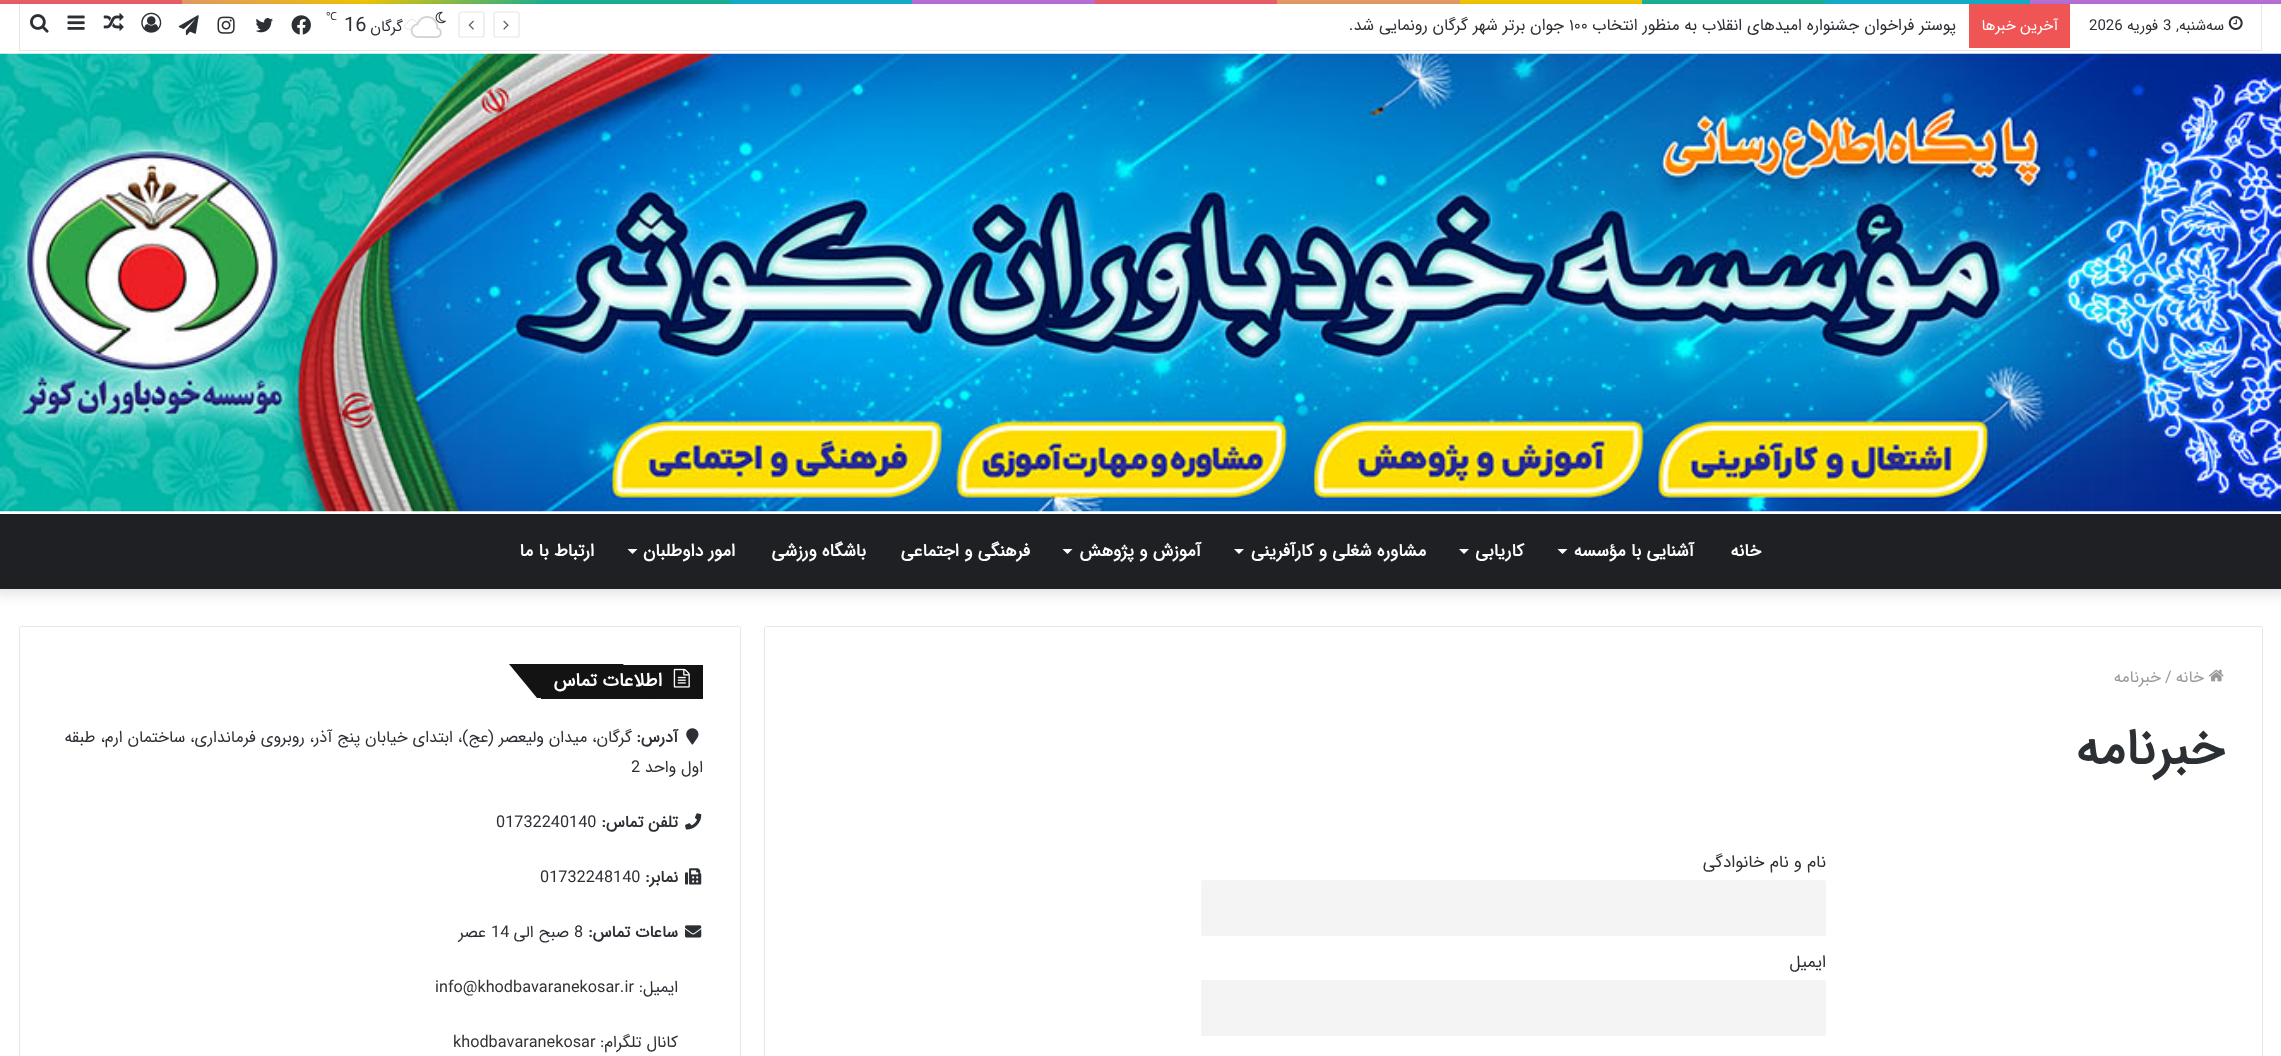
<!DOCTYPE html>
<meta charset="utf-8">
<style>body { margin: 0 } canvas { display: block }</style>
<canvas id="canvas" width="2281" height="1056"></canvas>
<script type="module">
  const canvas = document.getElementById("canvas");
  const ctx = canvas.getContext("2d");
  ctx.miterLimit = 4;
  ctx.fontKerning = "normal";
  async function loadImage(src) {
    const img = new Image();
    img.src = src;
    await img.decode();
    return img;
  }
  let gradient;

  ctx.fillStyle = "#ffffff";
  ctx.fillRect(0, 0, 2281, 1056);
  gradient = ctx.createLinearGradient(0, 1.9, 2281, 1.9);
  gradient.addColorStop(0, "#f76570");
  gradient.addColorStop(0.08, "#f76570");
  gradient.addColorStop(0.08, "#f3a46b");
  gradient.addColorStop(0.16, "#ffd205");
  gradient.addColorStop(0.24, "#1bbc9b");
  gradient.addColorStop(0.32, "#1bbc9b");
  gradient.addColorStop(0.32, "#14b9d5");
  gradient.addColorStop(0.4, "#14b9d5");
  gradient.addColorStop(0.4, "#c377e4");
  gradient.addColorStop(0.48, "#c377e4");
  gradient.addColorStop(0.48, "#f76570");
  gradient.addColorStop(0.56, "#f76570");
  gradient.addColorStop(0.56, "#f3a46b");
  gradient.addColorStop(0.64, "#f3a46b");
  gradient.addColorStop(0.64, "#ffd205");
  gradient.addColorStop(0.72, "#ffd205");
  gradient.addColorStop(0.72, "#1bbc9b");
  gradient.addColorStop(0.8, "#1bbc9b");
  gradient.addColorStop(0.8, "#14b9d5");
  gradient.addColorStop(0.89, "#14b9d5");
  gradient.addColorStop(0.89, "#c377e4");
  gradient.addColorStop(1, "#c377e4");
  ctx.fillStyle = gradient;
  ctx.fillRect(0, 0, 2281, 4);
  ctx.fillStyle = "rgba(0, 0, 0, 0.1)";
  ctx.filter = "blur(6px)";
  ctx.beginPath();
  ctx.rect(-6, -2, 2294, 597);
  ctx.fill();
  ctx.filter = "none";
  ctx.fillStyle = "#ffffff";
  ctx.fillRect(0, 4, 2281, 510);
  ctx.fillStyle = "#e6e6e6";
  ctx.beginPath();
  ctx.moveTo(2262, 4);
  ctx.lineTo(2262, 51);
  ctx.lineTo(2261, 50);
  ctx.lineTo(2261, 4);
  ctx.closePath();
  ctx.fill();
  ctx.fillStyle = "rgba(0, 0, 0, 0.1)";
  ctx.beginPath();
  ctx.moveTo(2262, 51);
  ctx.lineTo(19, 51);
  ctx.lineTo(20, 50);
  ctx.lineTo(2261, 50);
  ctx.closePath();
  ctx.fill();
  ctx.beginPath();
  ctx.moveTo(19, 51);
  ctx.lineTo(19, 4);
  ctx.lineTo(20, 4);
  ctx.lineTo(20, 50);
  ctx.closePath();
  ctx.fill();
  ctx.drawImage(await loadImage("img1.png"), 2228, 16, 15, 14);
  ctx.direction = "rtl";
  ctx.font = "15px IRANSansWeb";
  ctx.fillStyle = "#2c2f34";
  ctx.fillText("سه‌شنبه,", 2224, 30);
  ctx.direction = "ltr";
  ctx.fillText("3", 2163, 30);
  ctx.direction = "rtl";
  ctx.fillText("فوریه", 2158, 30);
  ctx.direction = "ltr";
  ctx.fillText("2026", 2089, 30);
  ctx.fillStyle = "#f05555";
  ctx.fillRect(1969, 4, 101, 44);
  ctx.direction = "rtl";
  ctx.fillStyle = "#ffffff";
  ctx.fillText("آخرین خبرها", 2058, 30);
  ctx.font = "16.25px IRANSansWeb";
  ctx.fillStyle = "#2c2f34";
  ctx.fillText("پوستر فراخوان جشنواره امیدهای انقلاب به منظور انتخاب", 1956, 30);
  ctx.direction = "ltr";
  ctx.fillText("۱۰۰", 1569, 30);
  ctx.direction = "rtl";
  ctx.fillText("جوان برتر شهر گرگان رونمایی شد.", 1564, 30);
  ctx.beginPath();
  ctx.moveTo(517, 37);
  ctx.lineTo(496, 37);
  ctx.bezierCurveTo(494.5, 37, 494, 36, 494, 35);
  ctx.lineTo(494, 14);
  ctx.bezierCurveTo(494, 12.5, 494.5, 12, 496, 12);
  ctx.lineTo(517, 12);
  ctx.bezierCurveTo(518, 12, 519, 12.5, 519, 14);
  ctx.lineTo(519, 35);
  ctx.bezierCurveTo(519, 36, 518, 37, 517, 37);
  ctx.closePath();
  ctx.strokeStyle = "#e6e6e6";
  ctx.lineWidth = 1.2;
  ctx.stroke();
  ctx.drawImage(await loadImage("img2.png"), 503, 20, 6, 10);
  ctx.beginPath();
  ctx.moveTo(482, 37);
  ctx.lineTo(461, 37);
  ctx.bezierCurveTo(459.5, 37, 459, 36, 459, 35);
  ctx.lineTo(459, 14);
  ctx.bezierCurveTo(459, 12.5, 459.5, 12, 461, 12);
  ctx.lineTo(482, 12);
  ctx.bezierCurveTo(483, 12, 484, 12.5, 484, 14);
  ctx.lineTo(484, 35);
  ctx.bezierCurveTo(484, 36, 483, 37, 482, 37);
  ctx.closePath();
  ctx.stroke();
  ctx.drawImage(await loadImage("img3.png"), 468, 20, 6, 10);
  ctx.drawImage(await loadImage("img4.png"), 435, 11, 11, 13);
  ctx.drawImage(await loadImage("img7.png"), 404, 19, 13, 11);
  ctx.drawImage(await loadImage("img6.png"), 411, 20, 26, 10);
  ctx.drawImage(await loadImage("img5.png"), 410, 16, 32, 22);
  ctx.font = "15px IRANSansWeb";
  ctx.fillText("گرگان", 403, 31);
  ctx.direction = "ltr";
  ctx.font = "20px IRANSansWeb";
  ctx.fillText("16", 344, 31);
  ctx.font = "11px Noto Sans";
  ctx.fillText("℃", 326, 20);
  ctx.drawImage(await loadImage("img8.png"), 291, 15, 20, 20);
  ctx.drawImage(await loadImage("img9.png"), 255, 18, 18, 15);
  ctx.drawImage(await loadImage("img10.png"), 217, 16, 18, 18);
  ctx.drawImage(await loadImage("img11.png"), 178, 15, 21, 21);
  ctx.drawImage(await loadImage("img12.png"), 141, 12, 21, 21);
  ctx.drawImage(await loadImage("img13.png"), 103, 13, 21, 18);
  ctx.drawImage(await loadImage("img14.png"), 67, 15, 18, 15);
  ctx.drawImage(await loadImage("img15.png"), 30, 14, 19, 19);
  ctx.drawImage(await loadImage("img16.png"), 0, 53, 2281, 459);
  ctx.fillStyle = "#1f2024";
  ctx.fillRect(0, 514, 2281, 75);
  ctx.direction = "rtl";
  ctx.font = "bold 17.5px IRANSansWeb";
  ctx.fillStyle = "#ffffff";
  ctx.fillText("خانه", 1761, 556);
  ctx.fillText("آشنایی با مؤسسه", 1694, 556);
  ctx.beginPath();
  ctx.moveTo(1557.5, 549);
  ctx.lineTo(1567.5, 549);
  ctx.lineTo(1562.5, 554);
  ctx.closePath();
  ctx.fill();
  ctx.fillText("کاریابی", 1524, 556);
  ctx.beginPath();
  ctx.moveTo(1459, 549);
  ctx.lineTo(1469, 549);
  ctx.lineTo(1464, 554);
  ctx.closePath();
  ctx.fill();
  ctx.fillText("مشاوره شغلی و کارآفرینی", 1426, 556);
  ctx.beginPath();
  ctx.moveTo(1234, 549);
  ctx.lineTo(1244, 549);
  ctx.lineTo(1239, 554);
  ctx.closePath();
  ctx.fill();
  ctx.fillText("آموزش و پژوهش", 1201, 556);
  ctx.beginPath();
  ctx.moveTo(1062.5, 549);
  ctx.lineTo(1072.5, 549);
  ctx.lineTo(1067.5, 554);
  ctx.closePath();
  ctx.fill();
  ctx.fillText("فرهنگی و اجتماعی", 1030, 556);
  ctx.fillText("باشگاه ورزشی", 866, 556);
  ctx.fillText("امور داوطلبان", 735, 556);
  ctx.beginPath();
  ctx.moveTo(627.5, 549);
  ctx.lineTo(637.5, 549);
  ctx.lineTo(632.5, 554);
  ctx.closePath();
  ctx.fill();
  ctx.fillText("ارتباط با ما", 594, 556);
  ctx.beginPath();
  ctx.roundRect(764.5, 626.5, 1498, 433, 2);
  ctx.lineWidth = 1;
  ctx.stroke();
  ctx.drawImage(await loadImage("img17.png"), 2209, 669, 15, 13);
  ctx.font = "16.25px IRANSansWeb";
  ctx.fillStyle = "#999999";
  ctx.fillText("خانه", 2204, 682);
  ctx.direction = "ltr";
  ctx.fillText("/", 2165, 682);
  ctx.direction = "rtl";
  ctx.fillText("خبرنامه", 2161, 682);
  ctx.font = "bold 51px IRANSansWeb";
  ctx.fillStyle = "#2c2f34";
  ctx.fillText("خبرنامه", 2224, 764);
  ctx.font = "17px IRANSansWeb";
  ctx.fillText("نام و نام خانوادگی", 1826, 867);
  ctx.fillStyle = "#f4f4f4";
  ctx.beginPath();
  ctx.roundRect(1201, 880, 625, 56, 2.5);
  ctx.fill();
  ctx.fillStyle = "#2c2f34";
  ctx.fillText("ایمیل", 1826, 967);
  ctx.fillStyle = "#f4f4f4";
  ctx.beginPath();
  ctx.roundRect(1201, 980, 625, 56, 2.5);
  ctx.fill();
  ctx.beginPath();
  ctx.roundRect(19.5, 626.5, 721, 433, 2);
  ctx.stroke();
  ctx.fillStyle = "#131313";
  ctx.fillRect(541, 665, 162, 34);
  ctx.beginPath();
  ctx.moveTo(509, 664);
  ctx.lineTo(623, 664);
  ctx.lineTo(651, 698);
  ctx.lineTo(537, 698);
  ctx.closePath();
  ctx.fill();
  ctx.drawImage(await loadImage("img18.png"), 673, 668, 17, 20);
  ctx.font = "bold 18.75px IRANSansWeb";
  ctx.fillStyle = "#ffffff";
  ctx.fillText("اطلاعات تماس", 662, 686);
  ctx.drawImage(await loadImage("img19.png"), 686, 728, 13, 17);
  ctx.font = "bold 16.25px IRANSansWeb";
  ctx.fillStyle = "#2c2f34";
  ctx.fillText("آدرس:", 678, 742);
  ctx.font = "16.25px IRANSansWeb";
  ctx.fillText("گرگان، میدان ولیعصر (عج)، ابتدای خیابان پنج آذر، روبروی فرمانداری، ساختمان ارم، طبقه", 632, 742);
  ctx.fillText("اول واحد", 703, 772);
  ctx.direction = "ltr";
  ctx.fillText("2", 631, 772);
  ctx.drawImage(await loadImage("img20.png"), 685, 813, 17, 17);
  ctx.direction = "rtl";
  ctx.font = "bold 16.25px IRANSansWeb";
  ctx.fillText("تلفن تماس:", 678, 827);
  ctx.direction = "ltr";
  ctx.font = "16.25px IRANSansWeb";
  ctx.fillText("01732240140", 496, 827);
  ctx.drawImage(await loadImage("img21.png"), 685, 868, 17, 17);
  ctx.direction = "rtl";
  ctx.font = "bold 16.25px IRANSansWeb";
  ctx.fillText("نمابر:", 678, 882);
  ctx.direction = "ltr";
  ctx.font = "16.25px IRANSansWeb";
  ctx.fillText("01732248140", 540, 882);
  ctx.drawImage(await loadImage("img22.png"), 685, 925, 17, 13);
  ctx.direction = "rtl";
  ctx.font = "bold 16.25px IRANSansWeb";
  ctx.fillText("ساعات تماس:", 678, 937);
  ctx.direction = "ltr";
  ctx.font = "16.25px IRANSansWeb";
  ctx.fillText("8", 574, 937);
  ctx.direction = "rtl";
  ctx.fillText("صبح الی", 569, 937);
  ctx.direction = "ltr";
  ctx.fillText("14", 491, 937);
  ctx.direction = "rtl";
  ctx.fillText("عصر", 486, 937);
  ctx.fillText("ایمیل:", 678, 992);
  ctx.direction = "ltr";
  ctx.fillStyle = "#333333";
  ctx.fillText("info@khodbavaranekosar.ir", 435, 992);
  ctx.direction = "rtl";
  ctx.fillStyle = "#2c2f34";
  ctx.fillText("کانال تلگرام:", 678, 1047);
  ctx.direction = "ltr";
  ctx.fillStyle = "#333333";
  ctx.fillText("khodbavaranekosar", 453, 1047);
</script>
